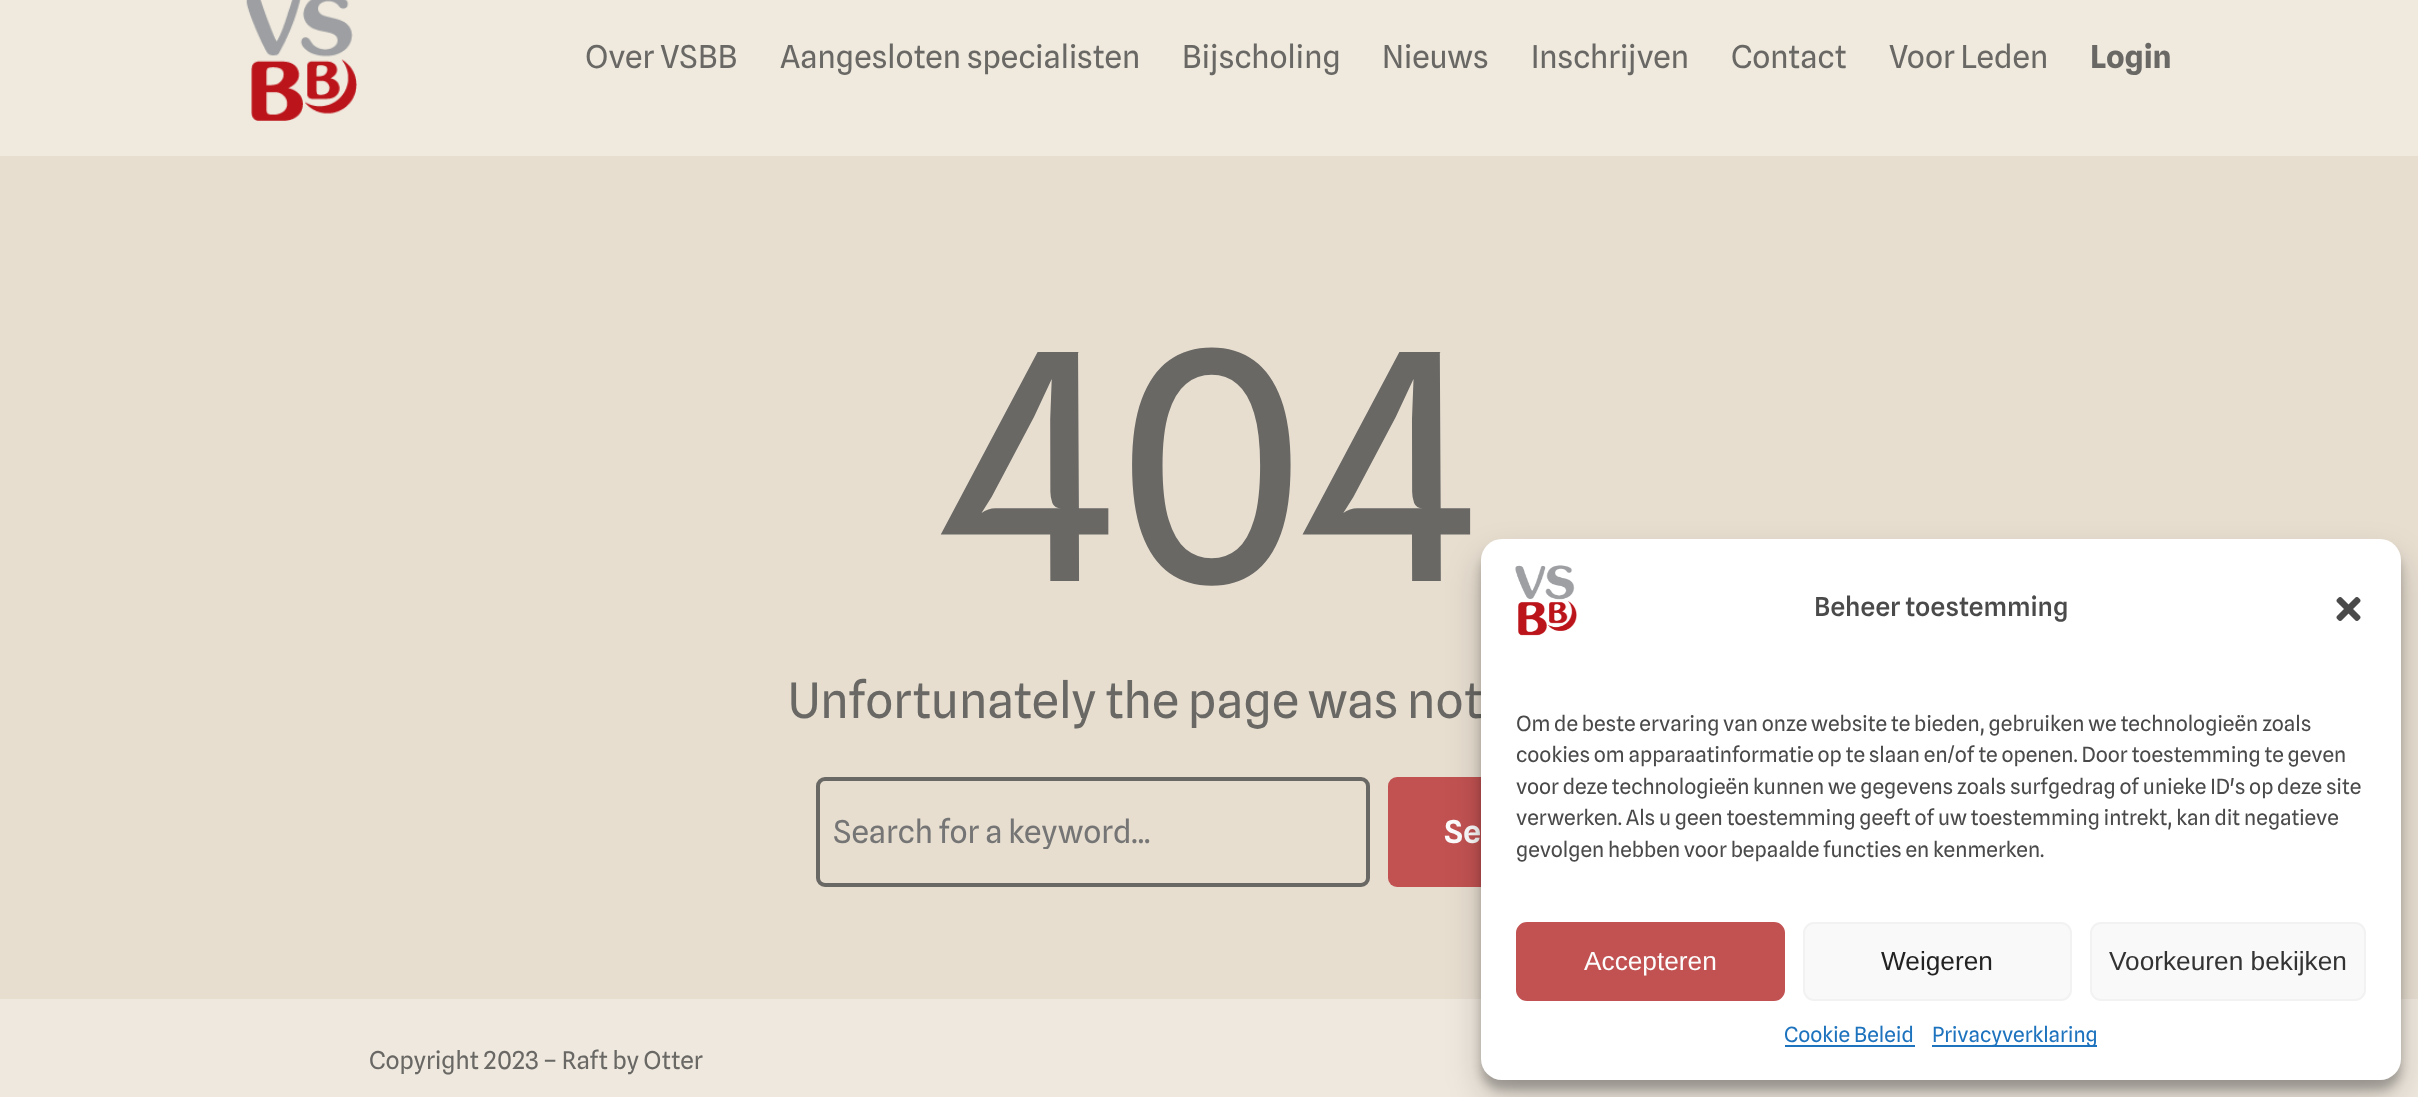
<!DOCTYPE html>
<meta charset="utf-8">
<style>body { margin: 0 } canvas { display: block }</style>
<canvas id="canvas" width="2418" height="1097"></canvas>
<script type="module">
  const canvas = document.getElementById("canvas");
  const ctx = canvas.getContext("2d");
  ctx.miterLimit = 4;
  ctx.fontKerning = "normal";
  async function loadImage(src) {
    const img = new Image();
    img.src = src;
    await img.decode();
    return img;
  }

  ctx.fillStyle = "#e7ded0";
  ctx.fillRect(0, 0, 2418, 1097);
  ctx.fillStyle = "#efe9de";
  ctx.fillRect(0, 0, 2418, 156);
  ctx.drawImage(await loadImage("img1.png"), 246, 0, 111, 121);
  ctx.font = "31.5px Spline Sans";
  ctx.fillStyle = "#696865";
  ctx.fillText("Over VSBB", 585, 68);
  ctx.fillText("Aangesloten specialisten", 780, 68);
  ctx.fillText("Bijscholing", 1182, 68);
  ctx.fillText("Nieuws", 1382, 68);
  ctx.fillText("Inschrijven", 1531, 68);
  ctx.fillText("Contact", 1731, 68);
  ctx.fillText("Voor Leden", 1889, 68);
  ctx.font = "bold 31.5px Spline Sans";
  ctx.fillText("Login", 2090, 68);
  ctx.font = "315px Spline Sans";
  ctx.fillText("404", 942, 581);
  ctx.font = "49px Spline Sans";
  ctx.fillText("Unfortunately the page was not", 788, 718);
  ctx.beginPath();
  ctx.roundRect(818, 779, 550, 106, 7);
  ctx.strokeStyle = "#696865";
  ctx.lineWidth = 4;
  ctx.stroke();
  ctx.save();
  ctx.beginPath();
  ctx.rect(833, 812, 492, 37);
  ctx.clip();
  ctx.font = "31.5px Spline Sans";
  ctx.fillStyle = "#757575";
  ctx.fillText("Search for a keyword...", 833, 843);
  ctx.restore();
  ctx.fillStyle = "#c25252";
  ctx.beginPath();
  ctx.roundRect(1388, 777, 215, 110, 9);
  ctx.fill();
  ctx.font = "600 31.5px Spline Sans";
  ctx.fillStyle = "#fcfcfc";
  ctx.fillText("Se", 1444, 843);
  ctx.fillStyle = "#efe8de";
  ctx.fillRect(0, 999, 2418, 98);
  ctx.font = "24.5px Spline Sans";
  ctx.fillStyle = "#696865";
  ctx.fillText("Copyright 2023 – Raft by Otter", 369, 1069);
  ctx.fillStyle = "rgba(0, 0, 0, 0.23)";
  ctx.filter = "blur(5px)";
  ctx.beginPath();
  ctx.roundRect(1481, 550, 920, 540, 21);
  ctx.fill();
  ctx.filter = "none";
  ctx.fillStyle = "rgba(0, 0, 0, 0.19)";
  ctx.filter = "blur(17.5px)";
  ctx.beginPath();
  ctx.roundRect(1481, 557, 920, 540, 21);
  ctx.fill();
  ctx.filter = "none";
  ctx.fillStyle = "#ffffff";
  ctx.beginPath();
  ctx.roundRect(1481, 539, 920, 541, 21);
  ctx.fill();
  ctx.drawImage(await loadImage("img2.png"), 1515, 565, 62, 71);
  ctx.font = "500 26.25px Spline Sans";
  ctx.fillStyle = "#4a4a4a";
  ctx.fillText("Beheer toestemming", 1814, 616);
  ctx.drawImage(await loadImage("img3.png"), 2336, 597, 25, 24);
  ctx.font = "21px Spline Sans";
  ctx.fillText("Om de beste ervaring van onze website te bieden, gebruiken we technologieën zoals", 1516, 731);
  ctx.fillText("cookies om apparaatinformatie op te slaan en/of te openen. Door toestemming te geven", 1516, 762);
  ctx.fillText("voor deze technologieën kunnen we gegevens zoals surfgedrag of unieke ID's op deze site", 1516, 794);
  ctx.fillText("verwerken. Als u geen toestemming geeft of uw toestemming intrekt, kan dit negatieve", 1516, 825);
  ctx.fillText("gevolgen hebben voor bepaalde functies en kenmerken.", 1516, 857);
  ctx.fillStyle = "#c25252";
  ctx.beginPath();
  ctx.roundRect(1517, 923, 267, 77, 10);
  ctx.fill();
  ctx.strokeStyle = "#c25252";
  ctx.lineWidth = 2;
  ctx.stroke();
  ctx.font = "26.25px Liberation Sans";
  ctx.fillStyle = "#fcfcfc";
  ctx.fillText("Accepteren", 1584, 970);
  ctx.fillStyle = "#f9f9f9";
  ctx.beginPath();
  ctx.roundRect(1804, 923, 267, 77, 10);
  ctx.fill();
  ctx.strokeStyle = "#f2f2f2";
  ctx.stroke();
  ctx.fillStyle = "#222222";
  ctx.fillText("Weigeren", 1881, 970);
  ctx.fillStyle = "#f9f9f9";
  ctx.beginPath();
  ctx.roundRect(2091, 923, 274, 77, 10);
  ctx.fill();
  ctx.stroke();
  ctx.fillStyle = "#333333";
  ctx.fillText("Voorkeuren bekijken", 2109, 970);
  ctx.font = "21px Spline Sans";
  ctx.fillStyle = "#1e73be";
  ctx.fillText("Cookie Beleid", 1784, 1042);
  ctx.fillRect(1785, 1045, 130, 2);
  ctx.fillRect(1932, 1045, 165, 2);
  ctx.fillText("Privacyverklaring", 1932, 1042);
</script>
